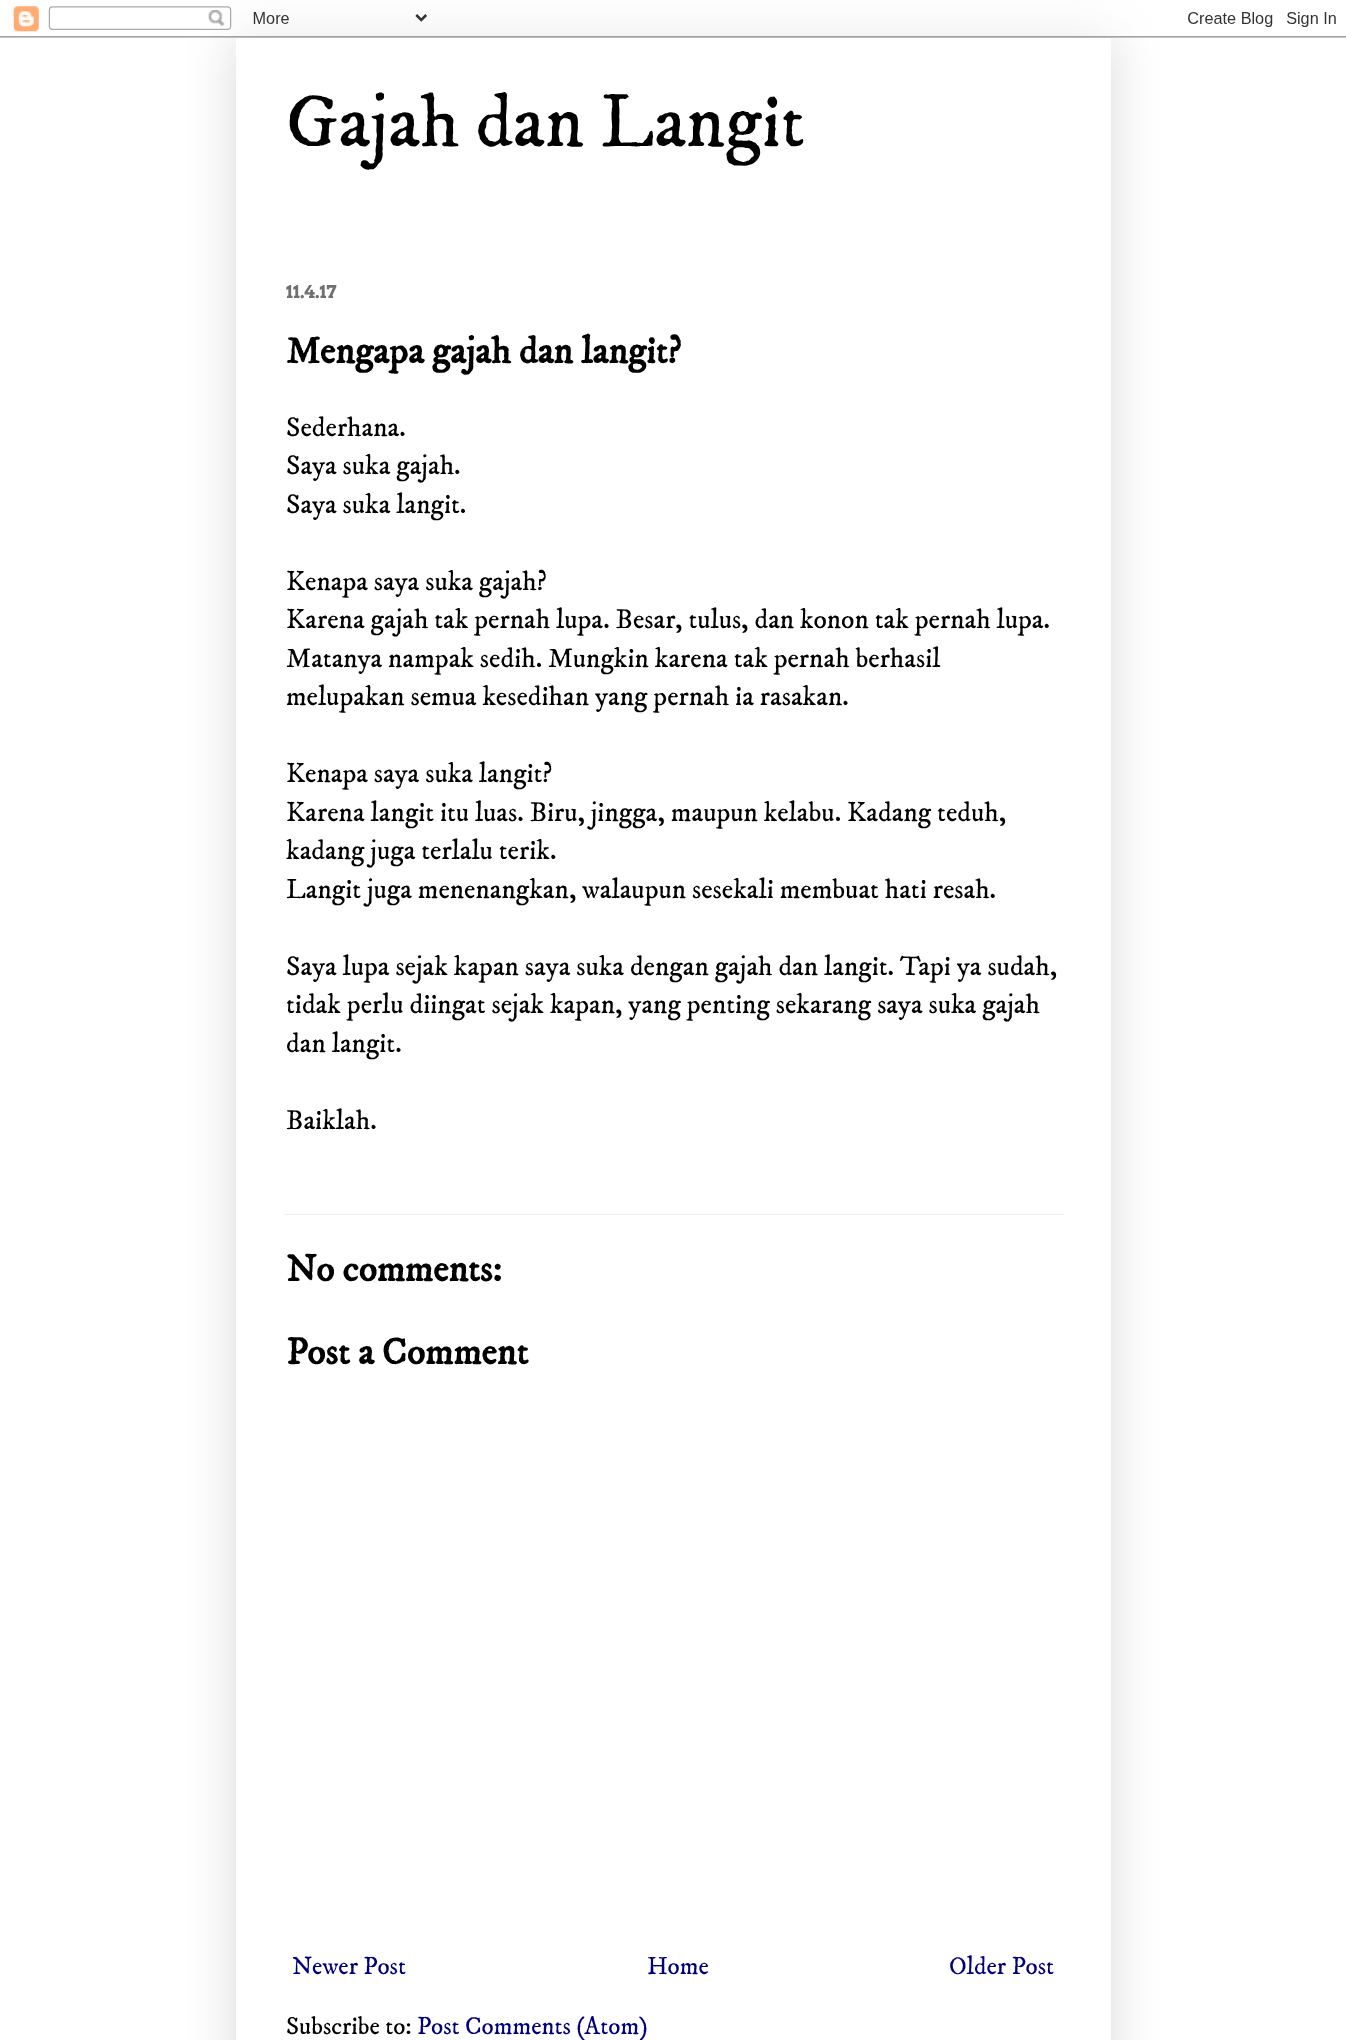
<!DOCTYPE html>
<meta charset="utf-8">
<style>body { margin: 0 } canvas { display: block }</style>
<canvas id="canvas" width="1346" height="2040"></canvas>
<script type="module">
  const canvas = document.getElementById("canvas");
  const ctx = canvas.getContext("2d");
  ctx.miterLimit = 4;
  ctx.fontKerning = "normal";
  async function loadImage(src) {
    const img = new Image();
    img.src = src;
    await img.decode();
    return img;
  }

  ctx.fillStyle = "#ffffff";
  ctx.fillRect(0, 0, 1346, 2040);
  ctx.fillStyle = "rgba(0, 0, 0, 0.15)";
  ctx.filter = "blur(25px)";
  ctx.beginPath();
  ctx.rect(236, 38, 875, 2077);
  ctx.fill();
  ctx.filter = "none";
  ctx.drawImage(await loadImage("img1.png"), 0, 6, 1346, 32);
  ctx.fillStyle = "#ffffff";
  ctx.fillRect(236, 38, 875, 2002);
  ctx.font = "75px IM FELL DW Pica";
  ctx.fillStyle = "#000000";
  ctx.fillText("Gajah dan Langit", 286, 146);
  ctx.font = "bold 17.5px Arvo";
  ctx.fillStyle = "#6f6f6f";
  ctx.fillText("11.4.17", 286, 298);
  ctx.font = "bold 37.5px IM FELL DW Pica";
  ctx.fillStyle = "#000000";
  ctx.fillText("Mengapa gajah dan langit?", 286, 363);
  ctx.font = "27.5px IM FELL DW Pica";
  ctx.fillText("Sederhana.", 286, 436);
  ctx.fillText("Saya suka gajah.", 286, 474);
  ctx.fillText("Saya suka langit.", 286, 513);
  ctx.fillText("Kenapa saya suka gajah?", 286, 590);
  ctx.fillText("Karena gajah tak pernah lupa. Besar, tulus, dan konon tak pernah lupa.", 286, 628);
  ctx.fillText("Matanya nampak sedih. Mungkin karena tak pernah berhasil", 286, 667);
  ctx.fillText("melupakan semua kesedihan yang pernah ia rasakan.", 286, 705);
  ctx.fillText("Kenapa saya suka langit?", 286, 782);
  ctx.fillText("Karena langit itu luas. Biru, jingga, maupun kelabu. Kadang teduh,", 286, 821);
  ctx.fillText("kadang juga terlalu terik.", 286, 859);
  ctx.fillText("Langit juga menenangkan, walaupun sesekali membuat hati resah.", 286, 898);
  ctx.fillText("Saya lupa sejak kapan saya suka dengan gajah dan langit. Tapi ya sudah,", 286, 975);
  ctx.fillText("tidak perlu diingat sejak kapan, yang penting sekarang saya suka gajah", 286, 1013);
  ctx.fillText("dan langit.", 286, 1052);
  ctx.fillText("Baiklah.", 286, 1129);
  ctx.fillStyle = "#efefef";
  ctx.fillRect(284, 1214, 780, 1);
  ctx.font = "bold 37.5px IM FELL DW Pica";
  ctx.fillStyle = "#000000";
  ctx.fillText("No comments:", 286, 1281);
  ctx.fillText("Post a Comment", 286, 1364);
  ctx.font = "25px IM FELL DW Pica";
  ctx.fillStyle = "#00007f";
  ctx.fillText("Newer Post", 292, 1974);
  ctx.fillText("Home", 647, 1974);
  ctx.fillText("Older Post", 949, 1974);
  ctx.fillStyle = "#000000";
  ctx.fillText("Subscribe to:", 286, 2034);
  ctx.fillStyle = "#00007f";
  ctx.fillText("Post Comments (Atom)", 417, 2034);
</script>
